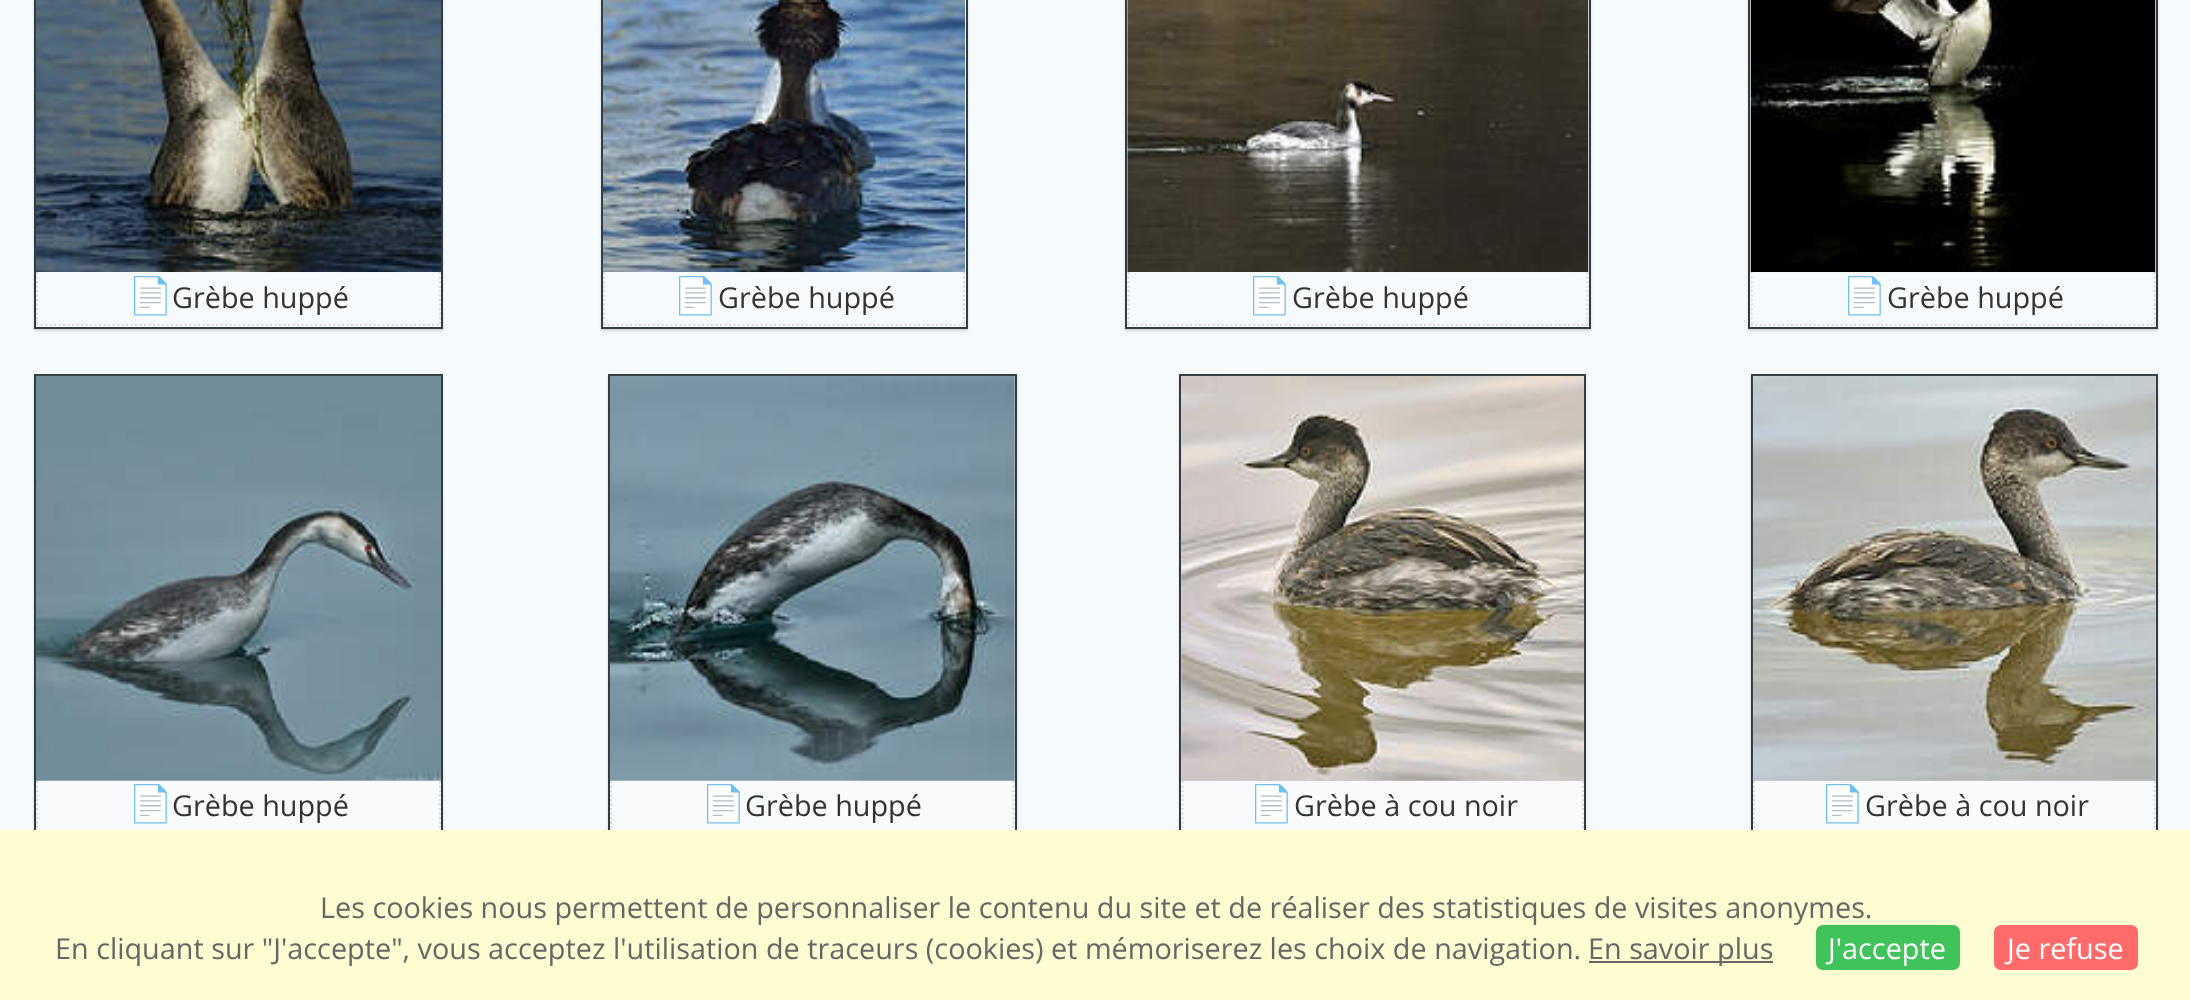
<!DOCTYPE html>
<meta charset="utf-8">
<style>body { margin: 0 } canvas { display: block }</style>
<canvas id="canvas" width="2190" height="1000"></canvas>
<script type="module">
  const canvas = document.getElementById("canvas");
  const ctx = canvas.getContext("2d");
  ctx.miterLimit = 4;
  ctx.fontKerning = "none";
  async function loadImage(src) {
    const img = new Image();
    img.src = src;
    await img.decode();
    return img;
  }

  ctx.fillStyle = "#f7fafc";
  ctx.fillRect(0, 0, 2190, 1000);
  ctx.save();
  ctx.beginPath();
  ctx.moveTo(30, 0);
  ctx.lineTo(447, 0);
  ctx.lineTo(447, 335);
  ctx.lineTo(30, 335);
  ctx.closePath();
  ctx.moveTo(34, -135);
  ctx.lineTo(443, -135);
  ctx.lineTo(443, 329);
  ctx.lineTo(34, 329);
  ctx.closePath();
  ctx.clip("evenodd");
  ctx.fillStyle = "rgba(0, 0, 0, 0.15)";
  ctx.filter = "blur(1px)";
  ctx.beginPath();
  ctx.rect(34, -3, 409, 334);
  ctx.fill();
  ctx.filter = "none";
  ctx.restore();
  ctx.strokeStyle = "#343c43";
  ctx.lineWidth = 2;
  ctx.strokeRect(35, -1, 407, 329);
  ctx.drawImage(await loadImage("img1.png"), 36, 0, 405, 273);
  ctx.fillStyle = "rgba(250, 250, 250, 0.75)";
  ctx.fillRect(36, 272, 405, 1);
  ctx.save();
  ctx.beginPath();
  ctx.rect(36, 0, 405, 326);
  ctx.clip();
  ctx.beginPath();
  ctx.moveTo(440, 272);
  ctx.lineTo(440, 326);
  ctx.strokeStyle = "#dadada";
  ctx.lineWidth = 2.2;
  ctx.setLineDash([2.25, 2.25]);
  ctx.stroke();
  ctx.beginPath();
  ctx.moveTo(36, 325);
  ctx.lineTo(441, 325);
  ctx.stroke();
  ctx.beginPath();
  ctx.moveTo(37, 272);
  ctx.lineTo(37, 326);
  ctx.stroke();
  ctx.restore();
  ctx.font = "36px Noto Color Emoji";
  ctx.fillStyle = "#333333";
  ctx.fillText("📄", 128, 308);
  ctx.font = "28.8px Open Sans";
  ctx.fillText("Grèbe huppé", 172, 308);
  ctx.save();
  ctx.beginPath();
  ctx.moveTo(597, 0);
  ctx.lineTo(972, 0);
  ctx.lineTo(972, 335);
  ctx.lineTo(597, 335);
  ctx.closePath();
  ctx.moveTo(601, -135);
  ctx.lineTo(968, -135);
  ctx.lineTo(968, 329);
  ctx.lineTo(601, 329);
  ctx.closePath();
  ctx.clip("evenodd");
  ctx.fillStyle = "rgba(0, 0, 0, 0.15)";
  ctx.filter = "blur(1px)";
  ctx.beginPath();
  ctx.rect(601, -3, 367, 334);
  ctx.fill();
  ctx.filter = "none";
  ctx.restore();
  ctx.strokeRect(602, -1, 365, 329);
  ctx.drawImage(await loadImage("img2.png"), 603, 0, 363, 273);
  ctx.fillStyle = "rgba(250, 250, 250, 0.75)";
  ctx.fillRect(603, 272, 362, 1);
  ctx.save();
  ctx.beginPath();
  ctx.rect(603, 0, 362, 326);
  ctx.clip();
  ctx.beginPath();
  ctx.moveTo(964, 272);
  ctx.lineTo(964, 326);
  ctx.strokeStyle = "#dadada";
  ctx.lineWidth = 2.2;
  ctx.setLineDash([2.25, 2.25]);
  ctx.stroke();
  ctx.beginPath();
  ctx.moveTo(603, 325);
  ctx.lineTo(965, 325);
  ctx.stroke();
  ctx.beginPath();
  ctx.moveTo(604, 272);
  ctx.lineTo(604, 326);
  ctx.stroke();
  ctx.restore();
  ctx.font = "36px Noto Color Emoji";
  ctx.fillStyle = "#333333";
  ctx.fillText("📄", 673, 308);
  ctx.font = "28.8px Open Sans";
  ctx.fillText("Grèbe huppé", 718, 308);
  ctx.save();
  ctx.beginPath();
  ctx.moveTo(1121, 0);
  ctx.lineTo(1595, 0);
  ctx.lineTo(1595, 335);
  ctx.lineTo(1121, 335);
  ctx.closePath();
  ctx.moveTo(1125, -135);
  ctx.lineTo(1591, -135);
  ctx.lineTo(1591, 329);
  ctx.lineTo(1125, 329);
  ctx.closePath();
  ctx.clip("evenodd");
  ctx.fillStyle = "rgba(0, 0, 0, 0.15)";
  ctx.filter = "blur(1px)";
  ctx.beginPath();
  ctx.rect(1125, -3, 466, 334);
  ctx.fill();
  ctx.filter = "none";
  ctx.restore();
  ctx.strokeRect(1126, -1, 464, 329);
  ctx.drawImage(await loadImage("img3.png"), 1127, 0, 462, 273);
  ctx.fillStyle = "rgba(250, 250, 250, 0.75)";
  ctx.fillRect(1127, 272, 462, 1);
  ctx.beginPath();
  ctx.moveTo(1587.5, 272);
  ctx.lineTo(1587.5, 326);
  ctx.strokeStyle = "#dadada";
  ctx.lineWidth = 2.2;
  ctx.setLineDash([2.25, 2.25]);
  ctx.stroke();
  ctx.save();
  ctx.beginPath();
  ctx.rect(1127, 0, 462, 326);
  ctx.clip();
  ctx.beginPath();
  ctx.moveTo(1127, 325);
  ctx.lineTo(1588.5, 325);
  ctx.stroke();
  ctx.restore();
  ctx.beginPath();
  ctx.moveTo(1128.5, 272);
  ctx.lineTo(1128.5, 326);
  ctx.stroke();
  ctx.font = "36px Noto Color Emoji";
  ctx.fillStyle = "#333333";
  ctx.fillText("📄", 1247, 308);
  ctx.font = "28.8px Open Sans";
  ctx.fillText("Grèbe huppé", 1292, 308);
  ctx.save();
  ctx.beginPath();
  ctx.moveTo(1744, 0);
  ctx.lineTo(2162, 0);
  ctx.lineTo(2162, 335);
  ctx.lineTo(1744, 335);
  ctx.closePath();
  ctx.moveTo(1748, -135);
  ctx.lineTo(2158, -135);
  ctx.lineTo(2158, 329);
  ctx.lineTo(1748, 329);
  ctx.closePath();
  ctx.clip("evenodd");
  ctx.fillStyle = "rgba(0, 0, 0, 0.15)";
  ctx.filter = "blur(1px)";
  ctx.beginPath();
  ctx.rect(1748, -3, 410, 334);
  ctx.fill();
  ctx.filter = "none";
  ctx.restore();
  ctx.strokeStyle = "#343c43";
  ctx.lineWidth = 2;
  ctx.setLineDash([]);
  ctx.strokeRect(1749, -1, 408, 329);
  ctx.drawImage(await loadImage("img4.png"), 1750, 0, 406, 273);
  ctx.fillStyle = "rgba(250, 250, 250, 0.75)";
  ctx.fillRect(1751, 272, 405, 1);
  ctx.beginPath();
  ctx.moveTo(2154.5, 272);
  ctx.lineTo(2154.5, 326);
  ctx.strokeStyle = "#dadada";
  ctx.lineWidth = 2.2;
  ctx.setLineDash([2.25, 2.25]);
  ctx.stroke();
  ctx.save();
  ctx.beginPath();
  ctx.rect(1751, 0, 405, 326);
  ctx.clip();
  ctx.beginPath();
  ctx.moveTo(1750.5, 325);
  ctx.lineTo(2155.5, 325);
  ctx.stroke();
  ctx.beginPath();
  ctx.moveTo(1751.5, 272);
  ctx.lineTo(1751.5, 326);
  ctx.stroke();
  ctx.restore();
  ctx.font = "36px Noto Color Emoji";
  ctx.fillStyle = "#333333";
  ctx.fillText("📄", 1842, 308);
  ctx.font = "28.8px Open Sans";
  ctx.fillText("Grèbe huppé", 1887, 308);
  ctx.fillStyle = "rgba(0, 0, 0, 0.15)";
  ctx.filter = "blur(1px)";
  ctx.beginPath();
  ctx.rect(34, 376, 409, 461);
  ctx.fill();
  ctx.filter = "none";
  ctx.strokeStyle = "#343c43";
  ctx.lineWidth = 2;
  ctx.setLineDash([]);
  ctx.strokeRect(35, 375, 407, 459);
  ctx.drawImage(await loadImage("img5.png"), 36, 375, 405, 406);
  ctx.fillStyle = "#f9fafb";
  ctx.fillRect(36, 781, 405, 49);
  ctx.save();
  ctx.beginPath();
  ctx.rect(36, 376, 405, 457);
  ctx.clip();
  ctx.beginPath();
  ctx.moveTo(440, 781);
  ctx.lineTo(440, 832.5);
  ctx.strokeStyle = "#dadada";
  ctx.lineWidth = 2.2;
  ctx.setLineDash([2.25, 2.25]);
  ctx.stroke();
  ctx.beginPath();
  ctx.moveTo(37, 781);
  ctx.lineTo(37, 832.5);
  ctx.stroke();
  ctx.restore();
  ctx.font = "36px Noto Color Emoji";
  ctx.fillStyle = "#333333";
  ctx.fillText("📄", 128, 816);
  ctx.font = "28.8px Open Sans";
  ctx.fillText("Grèbe huppé", 172, 816);
  ctx.fillStyle = "rgba(0, 0, 0, 0.15)";
  ctx.filter = "blur(1px)";
  ctx.beginPath();
  ctx.rect(608, 376, 409, 461);
  ctx.fill();
  ctx.filter = "none";
  ctx.strokeRect(609, 375, 407, 459);
  ctx.drawImage(await loadImage("img6.png"), 609, 375, 406, 406);
  ctx.fillStyle = "#f9fafb";
  ctx.fillRect(610, 781, 405, 49);
  ctx.beginPath();
  ctx.moveTo(1013.5, 781);
  ctx.lineTo(1013.5, 832.5);
  ctx.strokeStyle = "#dadada";
  ctx.lineWidth = 2.2;
  ctx.setLineDash([2.25, 2.25]);
  ctx.stroke();
  ctx.save();
  ctx.beginPath();
  ctx.rect(610, 376, 405, 457);
  ctx.clip();
  ctx.beginPath();
  ctx.moveTo(611, 781);
  ctx.lineTo(611, 832.5);
  ctx.stroke();
  ctx.restore();
  ctx.font = "36px Noto Color Emoji";
  ctx.fillStyle = "#333333";
  ctx.fillText("📄", 701, 816);
  ctx.font = "28.8px Open Sans";
  ctx.fillText("Grèbe huppé", 745, 816);
  ctx.fillStyle = "rgba(0, 0, 0, 0.15)";
  ctx.filter = "blur(1px)";
  ctx.beginPath();
  ctx.rect(1179, 376, 407, 461);
  ctx.fill();
  ctx.filter = "none";
  ctx.strokeStyle = "#343c43";
  ctx.lineWidth = 2;
  ctx.setLineDash([]);
  ctx.strokeRect(1180, 375, 405, 459);
  ctx.drawImage(await loadImage("img7.png"), 1181, 375, 403, 406);
  ctx.fillStyle = "#f9fafb";
  ctx.fillRect(1181, 781, 403, 49);
  ctx.save();
  ctx.beginPath();
  ctx.rect(1181, 376, 403, 457);
  ctx.clip();
  ctx.beginPath();
  ctx.moveTo(1583, 781);
  ctx.lineTo(1583, 832.5);
  ctx.strokeStyle = "#dadada";
  ctx.lineWidth = 2.2;
  ctx.setLineDash([2.25, 2.25]);
  ctx.stroke();
  ctx.restore();
  ctx.beginPath();
  ctx.moveTo(1182.5, 781);
  ctx.lineTo(1182.5, 832.5);
  ctx.strokeStyle = "#dadada";
  ctx.lineWidth = 2.2;
  ctx.setLineDash([2.25, 2.25]);
  ctx.stroke();
  ctx.font = "36px Noto Color Emoji";
  ctx.fillStyle = "#333333";
  ctx.fillText("📄", 1249, 816);
  ctx.font = "28.8px Open Sans";
  ctx.fillText("Grèbe à cou noir", 1294, 816);
  ctx.fillStyle = "rgba(0, 0, 0, 0.15)";
  ctx.filter = "blur(1px)";
  ctx.beginPath();
  ctx.rect(1751, 376, 407, 461);
  ctx.fill();
  ctx.filter = "none";
  ctx.strokeStyle = "#343c43";
  ctx.lineWidth = 2;
  ctx.setLineDash([]);
  ctx.strokeRect(1752, 375, 405, 459);
  ctx.drawImage(await loadImage("img8.png"), 1752, 375, 404, 406);
  ctx.fillStyle = "#f9fafb";
  ctx.fillRect(1753, 781, 403, 49);
  ctx.beginPath();
  ctx.moveTo(2154.5, 781);
  ctx.lineTo(2154.5, 832.5);
  ctx.strokeStyle = "#dadada";
  ctx.lineWidth = 2.2;
  ctx.setLineDash([2.25, 2.25]);
  ctx.stroke();
  ctx.save();
  ctx.beginPath();
  ctx.rect(1753, 376, 403, 457);
  ctx.clip();
  ctx.beginPath();
  ctx.moveTo(1754, 781);
  ctx.lineTo(1754, 832.5);
  ctx.stroke();
  ctx.restore();
  ctx.font = "36px Noto Color Emoji";
  ctx.fillStyle = "#333333";
  ctx.fillText("📄", 1820, 816);
  ctx.font = "28.8px Open Sans";
  ctx.fillText("Grèbe à cou noir", 1865, 816);
  ctx.fillStyle = "#fffcd1";
  ctx.fillRect(0, 830, 2190, 170);
  ctx.fillStyle = "#666666";
  ctx.fillText("Les cookies nous permettent de personnaliser le contenu du site et de réaliser des statistiques de visites anonymes.", 320, 918);
  ctx.fillText("En cliquant sur \"J'accepte\", vous acceptez l'utilisation de traceurs (cookies) et mémoriserez les choix de navigation.", 55, 959);
  ctx.fillRect(1589, 961, 184, 2);
  ctx.fillText("En savoir plus", 1588, 959);
  ctx.fillStyle = "#3fc35a";
  ctx.beginPath();
  ctx.roundRect(1816, 925, 144, 45, 7);
  ctx.fill();
  ctx.fillStyle = "#ffffff";
  ctx.fillText("J'accepte", 1828, 959);
  ctx.fillStyle = "#ff6b6b";
  ctx.beginPath();
  ctx.roundRect(1994, 925, 144, 45, 7);
  ctx.fill();
  ctx.fillStyle = "#ffffff";
  ctx.fillText("Je refuse", 2007, 959);
</script>
